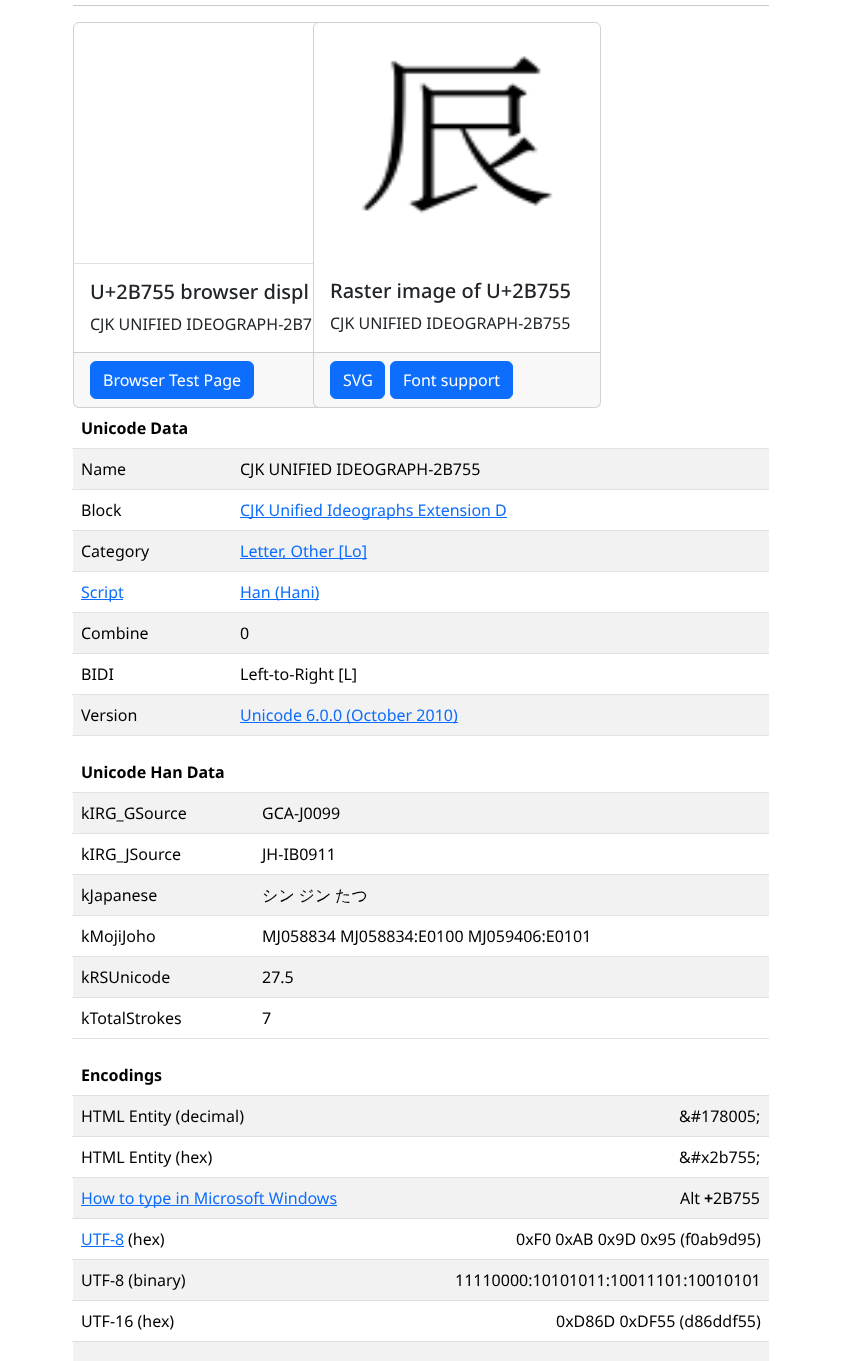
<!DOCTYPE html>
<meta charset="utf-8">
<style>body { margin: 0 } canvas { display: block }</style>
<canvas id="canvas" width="841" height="1361"></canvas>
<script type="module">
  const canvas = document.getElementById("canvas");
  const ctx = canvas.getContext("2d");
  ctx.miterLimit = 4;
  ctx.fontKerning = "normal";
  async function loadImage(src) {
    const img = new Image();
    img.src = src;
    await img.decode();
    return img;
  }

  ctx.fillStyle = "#ffffff";
  ctx.fillRect(0, 0, 841, 1361);
  ctx.fillStyle = "#c8c9ca";
  ctx.fillRect(73, 5, 696, 1);
  ctx.beginPath();
  ctx.roundRect(73.5, 22.5, 287, 385, 5.5);
  ctx.strokeStyle = "#d2d2d2";
  ctx.stroke();
  ctx.fillStyle = "#dee2e6";
  ctx.fillRect(74, 263, 239, 1);
  ctx.font = "500 20px Noto Sans";
  ctx.fillStyle = "#212529";
  ctx.fillText("U+2B755 browser displ", 90, 299);
  ctx.font = "16px Noto Sans";
  ctx.fillText("CJK UNIFIED IDEOGRAPH-2B7", 90, 330);
  ctx.fillStyle = "rgba(33, 37, 41, 0.03)";
  ctx.fillRect(74, 353, 242, 54);
  ctx.fillStyle = "#cdcdcd";
  ctx.fillRect(74, 352, 239, 1);
  ctx.fillStyle = "#0d6efd";
  ctx.beginPath();
  ctx.roundRect(90.5, 361.5, 163, 37, 5.5);
  ctx.fill();
  ctx.strokeStyle = "#0d6efd";
  ctx.stroke();
  ctx.fillStyle = "#ffffff";
  ctx.fillText("Browser Test Page", 103, 386);
  ctx.beginPath();
  ctx.roundRect(313, 22, 288, 386, 6);
  ctx.fill();
  ctx.beginPath();
  ctx.roundRect(313.5, 22.5, 287, 385, 5.5);
  ctx.strokeStyle = "rgba(0, 0, 0, 0.18)";
  ctx.stroke();
  ctx.drawImage(await loadImage("img1.png"), 362, 56, 191, 158);
  ctx.font = "500 20px Noto Sans";
  ctx.fillStyle = "#212529";
  ctx.fillText("Raster image of U+2B755", 330, 298);
  ctx.font = "16px Noto Sans";
  ctx.fillText("CJK UNIFIED IDEOGRAPH-2B755", 330, 329);
  ctx.fillStyle = "rgba(33, 37, 41, 0.03)";
  ctx.fillRect(314, 353, 286, 54);
  ctx.fillStyle = "#cdcdcd";
  ctx.fillRect(314, 352, 286, 1);
  ctx.fillStyle = "#0d6efd";
  ctx.beginPath();
  ctx.roundRect(330.5, 361.5, 54, 37, 5.5);
  ctx.fill();
  ctx.strokeStyle = "#0d6efd";
  ctx.stroke();
  ctx.fillStyle = "#ffffff";
  ctx.fillText("SVG", 343, 386);
  ctx.fillStyle = "#0d6efd";
  ctx.beginPath();
  ctx.roundRect(390.5, 361.5, 122, 37, 5.5);
  ctx.fill();
  ctx.stroke();
  ctx.fillStyle = "#ffffff";
  ctx.fillText("Font support", 403, 386);
  ctx.fillStyle = "#dee2e6";
  ctx.fillRect(72, 448, 697, 1);
  ctx.font = "bold 16px Noto Sans";
  ctx.fillStyle = "#000000";
  ctx.fillText("Unicode Data", 81, 434);
  ctx.fillStyle = "#f2f2f2";
  ctx.fillRect(73, 449, 696, 40);
  ctx.font = "16px Noto Sans";
  ctx.fillStyle = "#000000";
  ctx.fillText("Name", 81, 475);
  ctx.fillStyle = "#dee2e6";
  ctx.fillRect(72, 489, 697, 1);
  ctx.fillStyle = "#000000";
  ctx.fillText("CJK UNIFIED IDEOGRAPH-2B755", 240, 475);
  ctx.fillText("Block", 81, 516);
  ctx.fillStyle = "#dee2e6";
  ctx.fillRect(72, 530, 697, 1);
  ctx.fillStyle = "#0d6efd";
  ctx.fillRect(240, 517, 267, 1);
  ctx.fillText("CJK Unified Ideographs Extension D", 240, 516);
  ctx.fillStyle = "#f2f2f2";
  ctx.fillRect(73, 531, 696, 40);
  ctx.fillStyle = "#000000";
  ctx.fillText("Category", 81, 557);
  ctx.fillStyle = "#dee2e6";
  ctx.fillRect(72, 571, 697, 1);
  ctx.fillStyle = "#0d6efd";
  ctx.fillRect(240, 558, 127, 1);
  ctx.fillText("Letter, Other [Lo]", 240, 557);
  ctx.fillRect(81, 599, 42, 1);
  ctx.fillText("Script", 81, 598);
  ctx.fillStyle = "#dee2e6";
  ctx.fillRect(72, 612, 697, 1);
  ctx.fillStyle = "#0d6efd";
  ctx.fillRect(240, 599, 79, 1);
  ctx.fillText("Han (Hani)", 240, 598);
  ctx.fillStyle = "#f2f2f2";
  ctx.fillRect(73, 613, 696, 40);
  ctx.fillStyle = "#000000";
  ctx.fillText("Combine", 81, 639);
  ctx.fillStyle = "#dee2e6";
  ctx.fillRect(72, 653, 697, 1);
  ctx.fillStyle = "#000000";
  ctx.fillText("0", 240, 639);
  ctx.fillText("BIDI", 81, 680);
  ctx.fillStyle = "#dee2e6";
  ctx.fillRect(72, 694, 697, 1);
  ctx.fillStyle = "#000000";
  ctx.fillText("Left-to-Right [L]", 240, 680);
  ctx.fillStyle = "#f2f2f2";
  ctx.fillRect(73, 695, 696, 40);
  ctx.fillStyle = "#000000";
  ctx.fillText("Version", 81, 721);
  ctx.fillStyle = "#dee2e6";
  ctx.fillRect(72, 735, 697, 1);
  ctx.fillStyle = "#0d6efd";
  ctx.fillRect(240, 722, 218, 1);
  ctx.fillText("Unicode 6.0.0 (October 2010)", 240, 721);
  ctx.fillStyle = "#dee2e6";
  ctx.fillRect(72, 792, 697, 1);
  ctx.font = "bold 16px Noto Sans";
  ctx.fillStyle = "#000000";
  ctx.fillText("Unicode Han Data", 81, 778);
  ctx.fillStyle = "#f2f2f2";
  ctx.fillRect(73, 793, 696, 40);
  ctx.font = "16px Noto Sans";
  ctx.fillStyle = "#000000";
  ctx.fillText("kIRG_GSource", 81, 819);
  ctx.fillStyle = "#dee2e6";
  ctx.fillRect(72, 833, 697, 1);
  ctx.fillStyle = "#000000";
  ctx.fillText("GCA-J0099", 262, 819);
  ctx.fillText("kIRG_JSource", 81, 860);
  ctx.fillStyle = "#dee2e6";
  ctx.fillRect(72, 874, 697, 1);
  ctx.fillStyle = "#000000";
  ctx.fillText("JH-IB0911", 262, 860);
  ctx.fillStyle = "#f2f2f2";
  ctx.fillRect(73, 875, 696, 40);
  ctx.fillStyle = "#000000";
  ctx.fillText("kJapanese", 81, 901);
  ctx.fillStyle = "#dee2e6";
  ctx.fillRect(72, 915, 697, 1);
  ctx.wordSpacing = "-1px";
  ctx.font = "500 16px WenQuanYi Zen Hei";
  ctx.fillStyle = "#000000";
  ctx.fillText("シン ジン たつ", 262, 901);
  ctx.wordSpacing = "0px";
  ctx.font = "16px Noto Sans";
  ctx.fillText("kMojiJoho", 81, 942);
  ctx.fillStyle = "#dee2e6";
  ctx.fillRect(72, 956, 697, 1);
  ctx.fillStyle = "#000000";
  ctx.fillText("MJ058834 MJ058834:E0100 MJ059406:E0101", 262, 942);
  ctx.fillStyle = "#f2f2f2";
  ctx.fillRect(73, 957, 696, 40);
  ctx.fillStyle = "#000000";
  ctx.fillText("kRSUnicode", 81, 983);
  ctx.fillStyle = "#dee2e6";
  ctx.fillRect(72, 997, 697, 1);
  ctx.fillStyle = "#000000";
  ctx.fillText("27.5", 262, 983);
  ctx.fillText("kTotalStrokes", 81, 1024);
  ctx.fillStyle = "#dee2e6";
  ctx.fillRect(72, 1038, 697, 1);
  ctx.fillStyle = "#000000";
  ctx.fillText("7", 262, 1024);
  ctx.fillStyle = "#dee2e6";
  ctx.fillRect(72, 1095, 697, 1);
  ctx.font = "bold 16px Noto Sans";
  ctx.fillStyle = "#000000";
  ctx.fillText("Encodings", 81, 1081);
  ctx.fillStyle = "#f2f2f2";
  ctx.fillRect(73, 1096, 696, 40);
  ctx.font = "16px Noto Sans";
  ctx.fillStyle = "#000000";
  ctx.fillText("HTML Entity (decimal)", 81, 1122);
  ctx.fillStyle = "#dee2e6";
  ctx.fillRect(72, 1136, 697, 1);
  ctx.fillStyle = "#000000";
  ctx.fillText("&#178005;", 679, 1122);
  ctx.fillText("HTML Entity (hex)", 81, 1163);
  ctx.fillStyle = "#dee2e6";
  ctx.fillRect(72, 1177, 697, 1);
  ctx.fillStyle = "#000000";
  ctx.fillText("&#x2b755;", 679, 1163);
  ctx.fillStyle = "#f2f2f2";
  ctx.fillRect(73, 1178, 696, 40);
  ctx.fillStyle = "#0d6efd";
  ctx.fillRect(81, 1205, 256, 1);
  ctx.fillText("How to type in Microsoft Windows", 81, 1204);
  ctx.fillStyle = "#dee2e6";
  ctx.fillRect(72, 1218, 697, 1);
  ctx.fillStyle = "#000000";
  ctx.fillText("Alt", 680, 1204);
  ctx.font = "bold 16px Noto Sans";
  ctx.fillText("+", 704, 1204);
  ctx.font = "16px Noto Sans";
  ctx.fillText("2B755", 713, 1204);
  ctx.fillStyle = "#0d6efd";
  ctx.fillText("UTF-8", 81, 1245);
  ctx.fillRect(81, 1246, 43, 1);
  ctx.fillStyle = "#000000";
  ctx.fillText("(hex)", 128, 1245);
  ctx.fillStyle = "#dee2e6";
  ctx.fillRect(72, 1259, 697, 1);
  ctx.fillStyle = "#000000";
  ctx.fillText("0xF0 0xAB 0x9D 0x95 (f0ab9d95)", 516, 1245);
  ctx.fillStyle = "#f2f2f2";
  ctx.fillRect(73, 1260, 696, 40);
  ctx.fillStyle = "#000000";
  ctx.fillText("UTF-8 (binary)", 81, 1286);
  ctx.fillStyle = "#dee2e6";
  ctx.fillRect(72, 1300, 697, 1);
  ctx.fillStyle = "#000000";
  ctx.fillText("11110000:10101011:10011101:10010101", 455, 1286);
  ctx.fillText("UTF-16 (hex)", 81, 1327);
  ctx.fillStyle = "#dee2e6";
  ctx.fillRect(72, 1341, 697, 1);
  ctx.fillStyle = "#000000";
  ctx.fillText("0xD86D 0xDF55 (d86ddf55)", 556, 1327);
  ctx.fillStyle = "#f2f2f2";
  ctx.fillRect(73, 1342, 696, 19);
</script>
